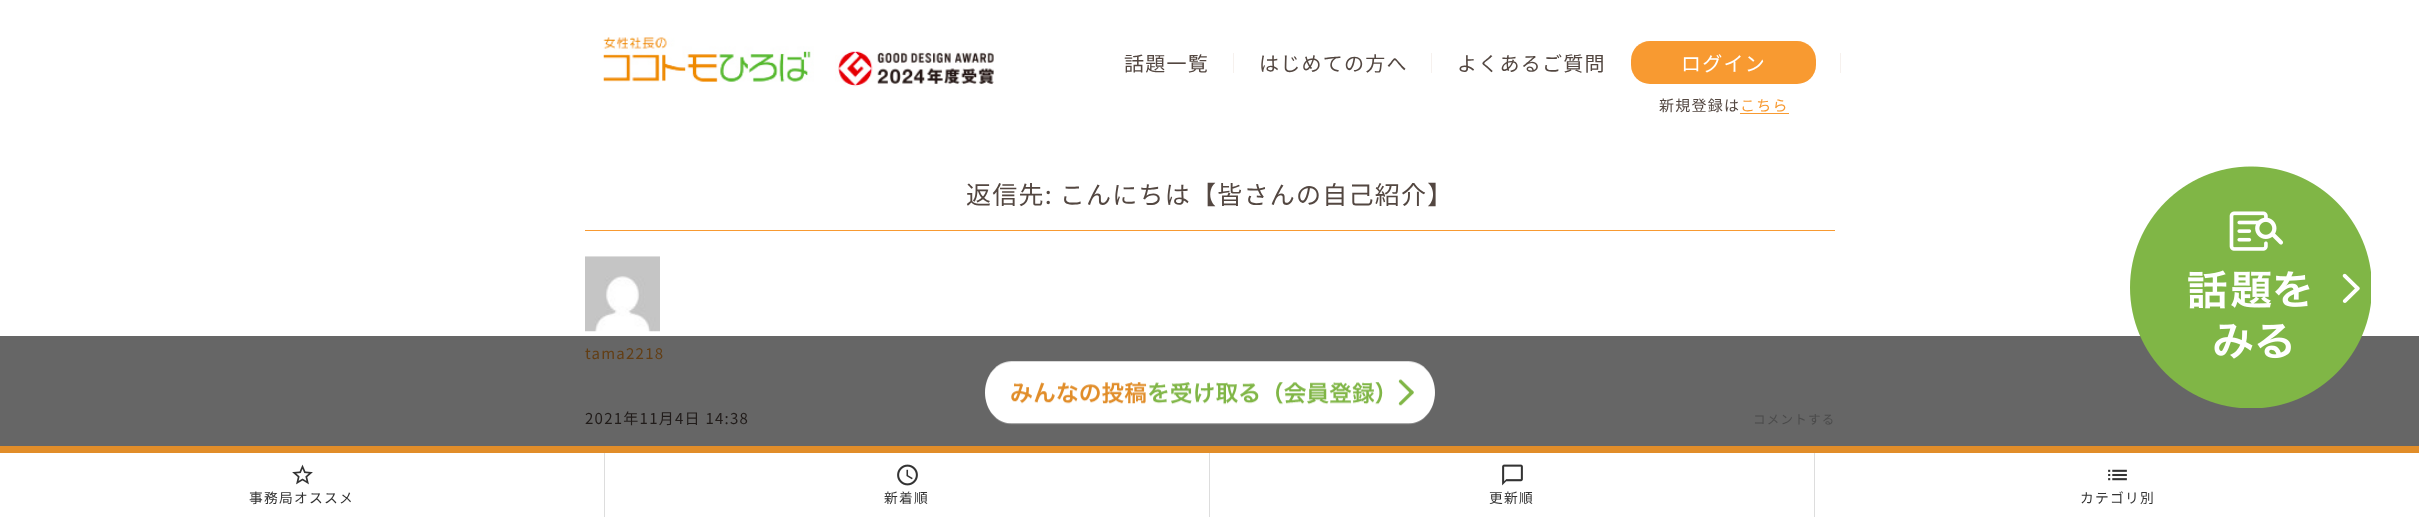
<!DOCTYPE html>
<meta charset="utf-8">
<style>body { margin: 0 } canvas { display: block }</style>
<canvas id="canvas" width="2419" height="517"></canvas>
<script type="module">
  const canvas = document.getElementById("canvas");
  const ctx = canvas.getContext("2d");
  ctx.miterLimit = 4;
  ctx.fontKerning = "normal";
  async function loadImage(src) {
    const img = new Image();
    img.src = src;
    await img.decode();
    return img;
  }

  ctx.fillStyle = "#ffffff";
  ctx.fillRect(0, 0, 2419, 517);
  ctx.fillStyle = "#666666";
  ctx.fillRect(0, 336, 2419, 110);
  ctx.drawImage(await loadImage("img1.png"), 603, 37, 211, 45);
  ctx.drawImage(await loadImage("img2.png"), 835, 51, 159, 36);
  ctx.letterSpacing = "1.25px";
  ctx.font = "100 20px Noto Sans JP";
  ctx.fillStyle = "#534741";
  ctx.fillText("話題一覧", 1124, 71);
  ctx.fillStyle = "#f6f1ee";
  ctx.fillRect(1233, 53, 1, 20);
  ctx.fillStyle = "#534741";
  ctx.fillText("はじめての方へ", 1259, 71);
  ctx.fillStyle = "#f6f1ee";
  ctx.fillRect(1431, 53, 1, 20);
  ctx.fillStyle = "#534741";
  ctx.fillText("よくあるご質問", 1457, 71);
  ctx.fillStyle = "#f89a31";
  ctx.beginPath();
  ctx.roundRect(1631, 41, 185, 43, 19);
  ctx.fill();
  ctx.fillStyle = "#ffffff";
  ctx.fillText("ログイン", 1681, 71);
  ctx.fillStyle = "#f6f1ee";
  ctx.fillRect(1840, 53, 1, 20);
  ctx.font = "100 15px Noto Sans JP";
  ctx.fillStyle = "#534741";
  ctx.fillText("新規登録は", 1659, 111);
  ctx.fillStyle = "#f89a31";
  ctx.fillText("こちら", 1740, 111);
  ctx.fillRect(1740, 113, 49, 1);
  ctx.fillRect(585, 230, 1250, 1);
  ctx.font = "100 25px Noto Sans JP";
  ctx.fillStyle = "#534741";
  ctx.fillText("返信先: こんにちは【皆さんの自己紹介】", 966, 204);
  ctx.drawImage(await loadImage("img3.png"), 585, 256, 75, 76);
  ctx.font = "100 15px Noto Sans JP";
  ctx.fillStyle = "#633e14";
  ctx.fillText("tama2218", 585, 359);
  ctx.fillStyle = "#211c1a";
  ctx.fillText("2021年11月4日 14:38", 585, 424);
  ctx.font = "100 12.5px Noto Sans JP";
  ctx.fillStyle = "#4b4b4b";
  ctx.fillText("コメントする", 1753, 424);
  ctx.fillStyle = "#cccccc";
  ctx.filter = "blur(0.5px)";
  ctx.beginPath();
  ctx.rect(0, 446, 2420, 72);
  ctx.fill();
  ctx.filter = "none";
  ctx.fillStyle = "#ffffff";
  ctx.fillRect(0, 453, 2419, 64);
  ctx.fillStyle = "#e18d29";
  ctx.fillRect(0, 446, 2419, 7);
  ctx.fillStyle = "#dddddd";
  ctx.fillRect(604, 453, 1, 64);
  ctx.drawImage(await loadImage("img4.png"), 292, 464, 21, 21);
  ctx.font = "100 13.75px Noto Sans JP";
  ctx.fillStyle = "#333333";
  ctx.fillText("事務局オススメ", 249, 503);
  ctx.fillStyle = "#dddddd";
  ctx.fillRect(1209, 453, 1, 64);
  ctx.drawImage(await loadImage("img5.png"), 897, 464, 21, 22);
  ctx.fillStyle = "#333333";
  ctx.fillText("新着順", 884, 503);
  ctx.fillStyle = "#dddddd";
  ctx.fillRect(1814, 453, 1, 64);
  ctx.drawImage(await loadImage("img6.png"), 1502, 464, 21, 22);
  ctx.fillStyle = "#333333";
  ctx.fillText("更新順", 1489, 503);
  ctx.drawImage(await loadImage("img7.png"), 2108, 469, 19, 12);
  ctx.fillText("カテゴリ別", 2080, 503);
  ctx.drawImage(await loadImage("img8.png"), 2130, 166, 241, 242);
  ctx.drawImage(await loadImage("img9.png"), 985, 361, 450, 64);
</script>
